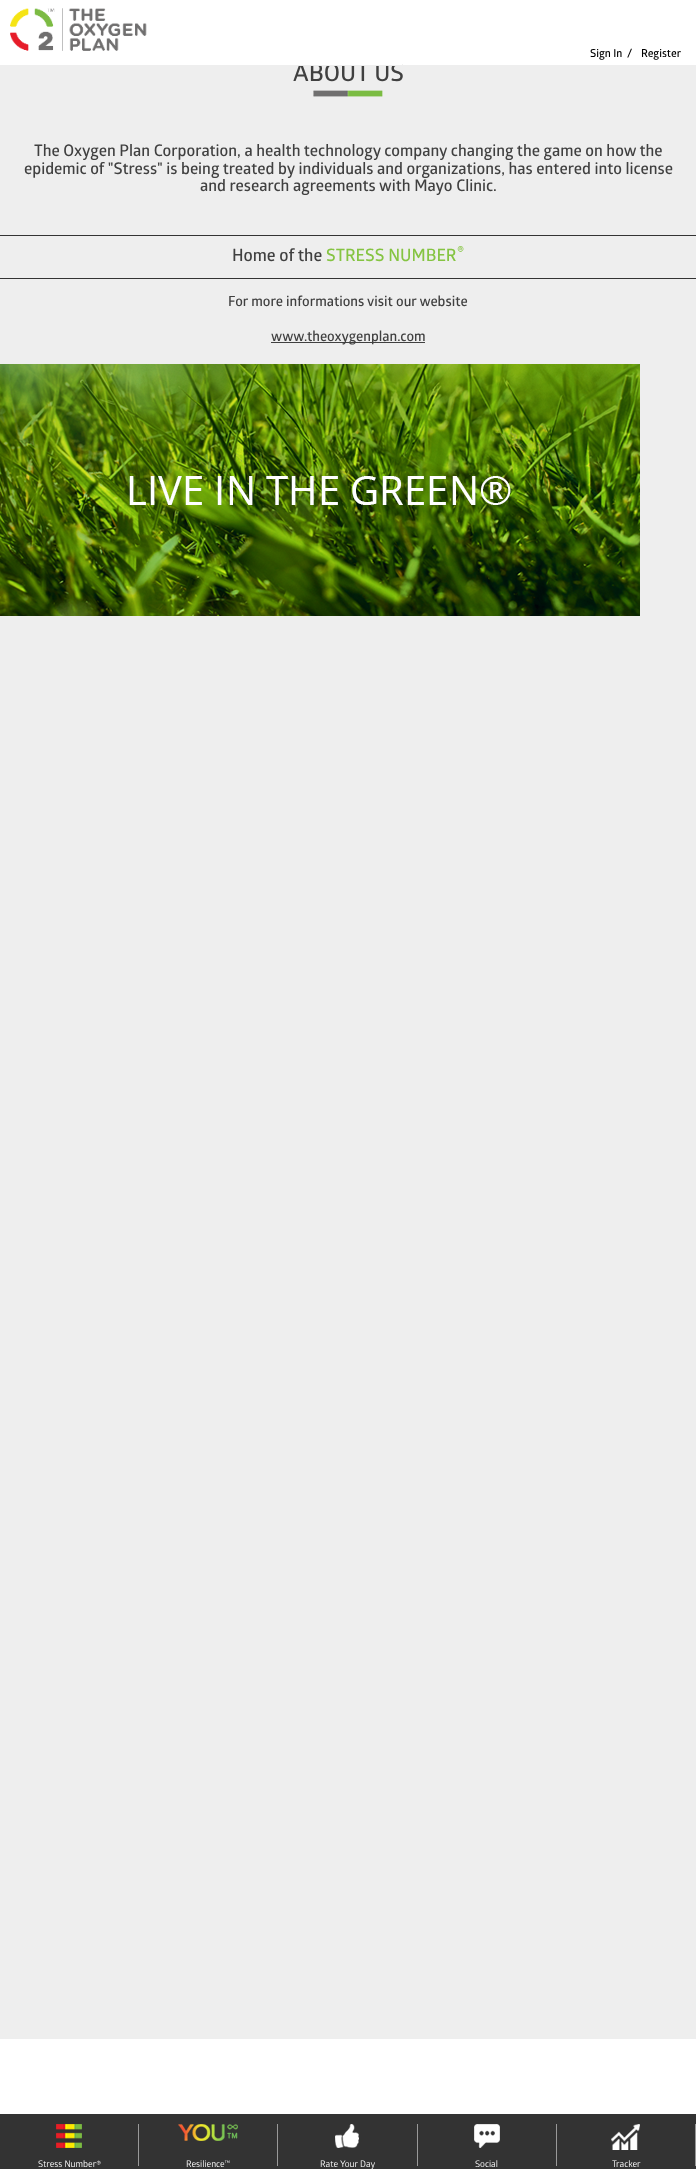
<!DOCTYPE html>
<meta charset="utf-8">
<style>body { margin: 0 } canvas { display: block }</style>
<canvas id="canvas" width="696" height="2169"></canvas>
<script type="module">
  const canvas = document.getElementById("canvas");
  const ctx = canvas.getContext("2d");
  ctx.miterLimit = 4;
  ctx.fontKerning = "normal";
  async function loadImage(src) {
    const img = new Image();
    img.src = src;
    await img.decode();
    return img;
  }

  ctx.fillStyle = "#ffffff";
  ctx.fillRect(0, 0, 696, 2169);
  ctx.drawImage(await loadImage("img1.png"), 10, 8, 137, 43);
  ctx.fillStyle = "#eeeeee";
  ctx.fillRect(0, 66, 696, 1973);
  ctx.font = "600 24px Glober";
  ctx.fillStyle = "#404040";
  ctx.fillText("ABOUT US", 293, 81);
  ctx.fillStyle = "#ffffff";
  ctx.fillRect(298, 63, 104, 2);
  ctx.fillStyle = "#eeeeee";
  ctx.fillRect(0, 65, 696, 1);
  ctx.font = "600 11px Glober";
  ctx.fillStyle = "#000000";
  ctx.fillText("Sign In", 590, 57);
  ctx.fillText("/", 627, 57);
  ctx.fillText("Register", 641, 57);
  ctx.drawImage(await loadImage("img2.png"), 313, 90, 70, 7);
  ctx.font = "600 16px Glober";
  ctx.fillStyle = "#404040";
  ctx.fillText("The Oxygen Plan Corporation, a health technology company changing the game on how the", 34, 156);
  ctx.fillText("epidemic of \"Stress\" is being treated by individuals and organizations, has entered into license", 24, 174);
  ctx.fillText("and research agreements with Mayo Clinic.", 200, 191);
  ctx.fillStyle = "#333333";
  ctx.fillRect(0, 235, 696, 1);
  ctx.fillRect(0, 278, 696, 1);
  ctx.font = "600 17px Glober";
  ctx.fillStyle = "#404040";
  ctx.fillText("Home of the", 232, 261);
  ctx.fillStyle = "#85c442";
  ctx.fillText("STRESS NUMBER", 326, 261);
  ctx.font = "600 13px Glober";
  ctx.fillText("®", 457, 255);
  ctx.font = "600 14px Glober";
  ctx.fillStyle = "#404040";
  ctx.fillText("For more informations visit our website", 228, 306);
  ctx.fillRect(271, 342, 154, 1);
  ctx.fillText("www.theoxygenplan.com", 271, 341);
  ctx.drawImage(await loadImage("img3.png"), 0, 364, 640, 252);
  ctx.fillStyle = "#333333";
  ctx.fillRect(0, 2114, 696, 55);
  ctx.fillStyle = "#999999";
  ctx.fillRect(138, 2124, 1, 42);
  ctx.drawImage(await loadImage("img4.png"), 56, 2124, 26, 24);
  ctx.font = "9px Glober";
  ctx.fillStyle = "#ffffff";
  ctx.fillText("Stress Number®", 38, 2167);
  ctx.fillStyle = "#999999";
  ctx.fillRect(277, 2124, 1, 42);
  ctx.drawImage(await loadImage("img5.png"), 178, 2124, 60, 17);
  ctx.fillStyle = "#ffffff";
  ctx.fillText("Resilience™", 186, 2167);
  ctx.fillStyle = "#999999";
  ctx.fillRect(417, 2124, 1, 42);
  ctx.drawImage(await loadImage("img6.png"), 335, 2124, 24, 24);
  ctx.fillStyle = "#ffffff";
  ctx.fillText("Rate Your Day", 320, 2167);
  ctx.fillStyle = "#999999";
  ctx.fillRect(556, 2124, 1, 42);
  ctx.drawImage(await loadImage("img7.png"), 474, 2124, 26, 24);
  ctx.fillStyle = "#ffffff";
  ctx.fillText("Social", 475, 2167);
  ctx.fillStyle = "#999999";
  ctx.fillRect(695, 2124, 1, 42);
  ctx.drawImage(await loadImage("img8.png"), 611, 2124, 29, 26);
  ctx.fillStyle = "#ffffff";
  ctx.fillText("Tracker", 612, 2167);
</script>
